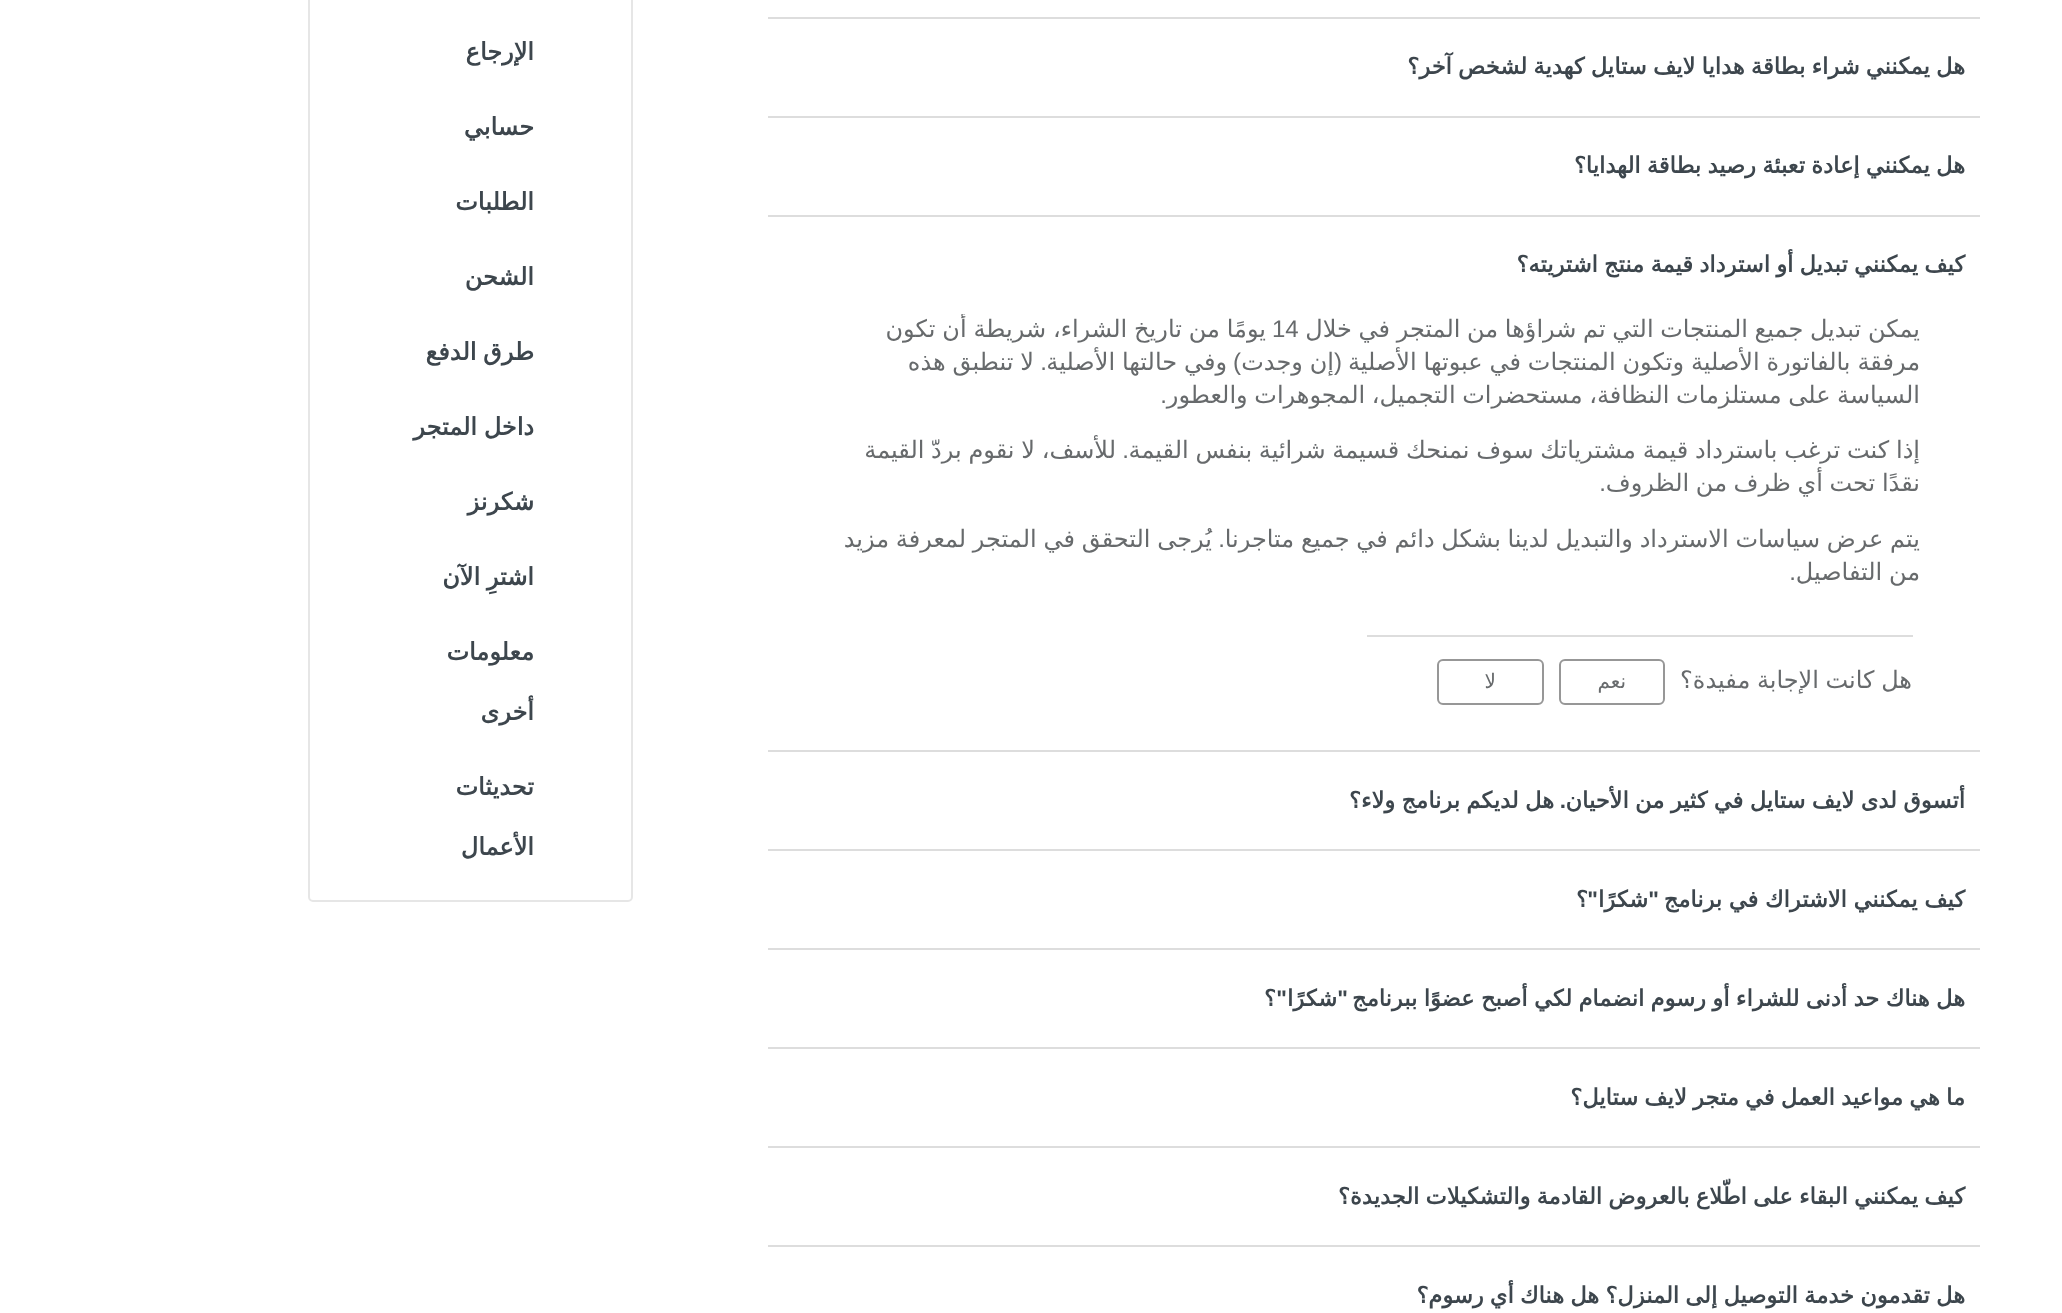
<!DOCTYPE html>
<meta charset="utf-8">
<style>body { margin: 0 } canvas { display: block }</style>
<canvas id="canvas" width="2062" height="1313"></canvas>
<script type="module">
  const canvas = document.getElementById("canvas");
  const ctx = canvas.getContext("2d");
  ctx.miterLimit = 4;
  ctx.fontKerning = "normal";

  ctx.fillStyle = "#ffffff";
  ctx.fillRect(0, 0, 2062, 1313);
  ctx.fillStyle = "#dddddd";
  ctx.fillRect(768, 17, 1212, 2);
  ctx.fillRect(768, 116, 1212, 2);
  ctx.wordSpacing = "-0.9px";
  ctx.direction = "rtl";
  ctx.font = "bold 22.5px DejaVu Sans";
  ctx.fillStyle = "#3d464d";
  ctx.fillText("هل يمكنني شراء بطاقة هدايا لايف ستايل كهدية لشخص آخر؟", 1965, 74);
  ctx.fillStyle = "#dddddd";
  ctx.fillRect(768, 215, 1212, 2);
  ctx.fillStyle = "#3d464d";
  ctx.fillText("هل يمكنني إعادة تعبئة رصيد بطاقة الهدايا؟", 1965, 173);
  ctx.fillStyle = "#dddddd";
  ctx.fillRect(768, 750, 1212, 2);
  ctx.fillStyle = "#3d464d";
  ctx.fillText("كيف يمكنني تبديل أو استرداد قيمة منتج اشتريته؟", 1965, 272);
  ctx.wordSpacing = "-1px";
  ctx.font = "24px DejaVu Sans";
  ctx.fillStyle = "#676a6c";
  ctx.fillText("يمكن تبديل جميع المنتجات التي تم شراؤها من المتجر في خلال", 1920, 337);
  ctx.wordSpacing = "0px";
  ctx.direction = "ltr";
  ctx.font = "24px Liberation Sans";
  ctx.fillText("14", 1272, 337);
  ctx.save();
  ctx.beginPath();
  ctx.rect(768, 314, 1212, 436);
  ctx.clip();
  ctx.wordSpacing = "-0.75px";
  ctx.direction = "rtl";
  ctx.font = "24px DejaVu Sans";
  ctx.fillText("يومًا من تاريخ الشراء، شريطة أن تكون", 1266, 337);
  ctx.restore();
  ctx.wordSpacing = "-0.75px";
  ctx.direction = "rtl";
  ctx.font = "24px DejaVu Sans";
  ctx.fillText("مرفقة بالفاتورة الأصلية وتكون المنتجات في عبوتها الأصلية", 1920, 370);
  ctx.wordSpacing = "0px";
  ctx.font = "24px Liberation Sans";
  ctx.fillText("(", 1342, 370);
  ctx.wordSpacing = "-0.75px";
  ctx.font = "24px DejaVu Sans";
  ctx.fillText("إن وجدت", 1334, 370);
  ctx.wordSpacing = "0px";
  ctx.font = "24px Liberation Sans";
  ctx.fillText(")", 1241, 370);
  ctx.wordSpacing = "-0.75px";
  ctx.font = "24px DejaVu Sans";
  ctx.fillText("وفي حالتها الأصلية", 1227, 370);
  ctx.wordSpacing = "0px";
  ctx.font = "24px Liberation Sans";
  ctx.fillText(".", 1047, 370);
  ctx.wordSpacing = "-0.75px";
  ctx.font = "24px DejaVu Sans";
  ctx.fillText("لا تنطبق هذه", 1034, 370);
  ctx.wordSpacing = "-1px";
  ctx.fillText("السياسة على مستلزمات النظافة، مستحضرات التجميل، المجوهرات والعطور", 1920, 403);
  ctx.wordSpacing = "0px";
  ctx.font = "24px Liberation Sans";
  ctx.fillText(".", 1167, 403);
  ctx.wordSpacing = "-0.9px";
  ctx.font = "24px DejaVu Sans";
  ctx.fillText("إذا كنت ترغب باسترداد قيمة مشترياتك سوف نمنحك قسيمة شرائية بنفس القيمة", 1920, 458);
  ctx.wordSpacing = "0px";
  ctx.font = "24px Liberation Sans";
  ctx.fillText(".", 1129, 458);
  ctx.wordSpacing = "-0.9px";
  ctx.font = "24px DejaVu Sans";
  ctx.fillText("للأسف، لا نقوم بردّ القيمة", 1116, 458);
  ctx.wordSpacing = "-1px";
  ctx.fillText("نقدًا تحت أي ظرف من الظروف", 1920, 491);
  ctx.wordSpacing = "0px";
  ctx.font = "24px Liberation Sans";
  ctx.fillText(".", 1606, 491);
  ctx.wordSpacing = "-0.9px";
  ctx.font = "24px DejaVu Sans";
  ctx.fillText("يتم عرض سياسات الاسترداد والتبديل لدينا بشكل دائم في جميع متاجرنا", 1920, 547);
  ctx.wordSpacing = "0px";
  ctx.font = "24px Liberation Sans";
  ctx.fillText(".", 1225, 547);
  ctx.wordSpacing = "-0.9px";
  ctx.font = "24px DejaVu Sans";
  ctx.fillText("يُرجى التحقق في المتجر لمعرفة مزيد", 1212, 547);
  ctx.wordSpacing = "-1px";
  ctx.fillText("من التفاصيل", 1920, 580);
  ctx.wordSpacing = "0px";
  ctx.font = "24px Liberation Sans";
  ctx.fillText(".", 1796, 580);
  ctx.fillStyle = "#dddddd";
  ctx.fillRect(1367, 635, 546, 2);
  ctx.wordSpacing = "-1px";
  ctx.font = "24px DejaVu Sans";
  ctx.fillStyle = "#676a6c";
  ctx.fillText("هل كانت الإجابة مفيدة؟", 1912, 688);
  ctx.beginPath();
  ctx.roundRect(1560, 660, 104, 44, 5);
  ctx.strokeStyle = "#979797";
  ctx.lineWidth = 2;
  ctx.stroke();
  ctx.wordSpacing = "0px";
  ctx.font = "20px DejaVu Sans";
  ctx.fillText("نعم", 1626, 688);
  ctx.beginPath();
  ctx.roundRect(1438, 660, 105, 44, 5);
  ctx.stroke();
  ctx.fillText("لا", 1496, 688);
  ctx.fillStyle = "#dddddd";
  ctx.fillRect(768, 849, 1212, 2);
  ctx.wordSpacing = "-0.75px";
  ctx.font = "bold 22.5px DejaVu Sans";
  ctx.fillStyle = "#3d464d";
  ctx.fillText("أتسوق لدى لايف ستايل في كثير من الأحيان", 1965, 808);
  ctx.wordSpacing = "0px";
  ctx.font = "bold 22.5px Liberation Sans";
  ctx.fillText(".", 1566, 808);
  ctx.wordSpacing = "-0.75px";
  ctx.font = "bold 22.5px DejaVu Sans";
  ctx.fillText("هل لديكم برنامج ولاء؟", 1554, 808);
  ctx.fillStyle = "#dddddd";
  ctx.fillRect(768, 948, 1212, 2);
  ctx.wordSpacing = "-0.5px";
  ctx.fillStyle = "#3d464d";
  ctx.fillText("كيف يمكنني الاشتراك في برنامج", 1965, 907);
  ctx.wordSpacing = "0px";
  ctx.font = "bold 22.5px Liberation Sans";
  ctx.fillText("\"", 1659, 907);
  ctx.font = "bold 22.5px DejaVu Sans";
  ctx.fillText("شكرًا", 1648, 907);
  ctx.font = "bold 22.5px Liberation Sans";
  ctx.fillText("\"", 1598, 907);
  ctx.font = "bold 22.5px DejaVu Sans";
  ctx.fillText("؟", 1588, 907);
  ctx.fillStyle = "#dddddd";
  ctx.fillRect(768, 1047, 1212, 2);
  ctx.wordSpacing = "-0.75px";
  ctx.fillStyle = "#3d464d";
  ctx.fillText("هل هناك حد أدنى للشراء أو رسوم انضمام لكي أصبح عضوًا ببرنامج", 1965, 1006);
  ctx.wordSpacing = "0px";
  ctx.font = "bold 22.5px Liberation Sans";
  ctx.fillText("\"", 1348, 1006);
  ctx.font = "bold 22.5px DejaVu Sans";
  ctx.fillText("شكرًا", 1337, 1006);
  ctx.font = "bold 22.5px Liberation Sans";
  ctx.fillText("\"", 1287, 1006);
  ctx.font = "bold 22.5px DejaVu Sans";
  ctx.fillText("؟", 1276, 1006);
  ctx.fillStyle = "#dddddd";
  ctx.fillRect(768, 1146, 1212, 2);
  ctx.wordSpacing = "-0.9px";
  ctx.fillStyle = "#3d464d";
  ctx.fillText("ما هي مواعيد العمل في متجر لايف ستايل؟", 1965, 1105);
  ctx.fillStyle = "#dddddd";
  ctx.fillRect(768, 1245, 1212, 2);
  ctx.fillStyle = "#3d464d";
  ctx.fillText("كيف يمكنني البقاء على اطّلاع بالعروض القادمة والتشكيلات الجديدة؟", 1965, 1204);
  ctx.fillText("هل تقدمون خدمة التوصيل إلى المنزل؟ هل هناك أي رسوم؟", 1965, 1303);
  ctx.beginPath();
  ctx.roundRect(309, -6, 323, 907, 4);
  ctx.strokeStyle = "#e6e6e6";
  ctx.stroke();
  ctx.wordSpacing = "0px";
  ctx.font = "bold 24px DejaVu Sans";
  ctx.fillText("الإرجاع", 534, 60);
  ctx.fillText("حسابي", 534, 135);
  ctx.fillText("الطلبات", 534, 210);
  ctx.fillText("الشحن", 534, 285);
  ctx.wordSpacing = "-1px";
  ctx.fillText("طرق الدفع", 534, 360);
  ctx.fillText("داخل المتجر", 534, 435);
  ctx.wordSpacing = "0px";
  ctx.fillText("شكرنز", 534, 510);
  ctx.wordSpacing = "-1px";
  ctx.fillText("اشترِ الآن", 534, 585);
  ctx.wordSpacing = "0px";
  ctx.fillText("معلومات", 534, 660);
  ctx.fillText("أخرى", 534, 720);
  ctx.fillText("تحديثات", 534, 795);
  ctx.fillText("الأعمال", 534, 855);
</script>
